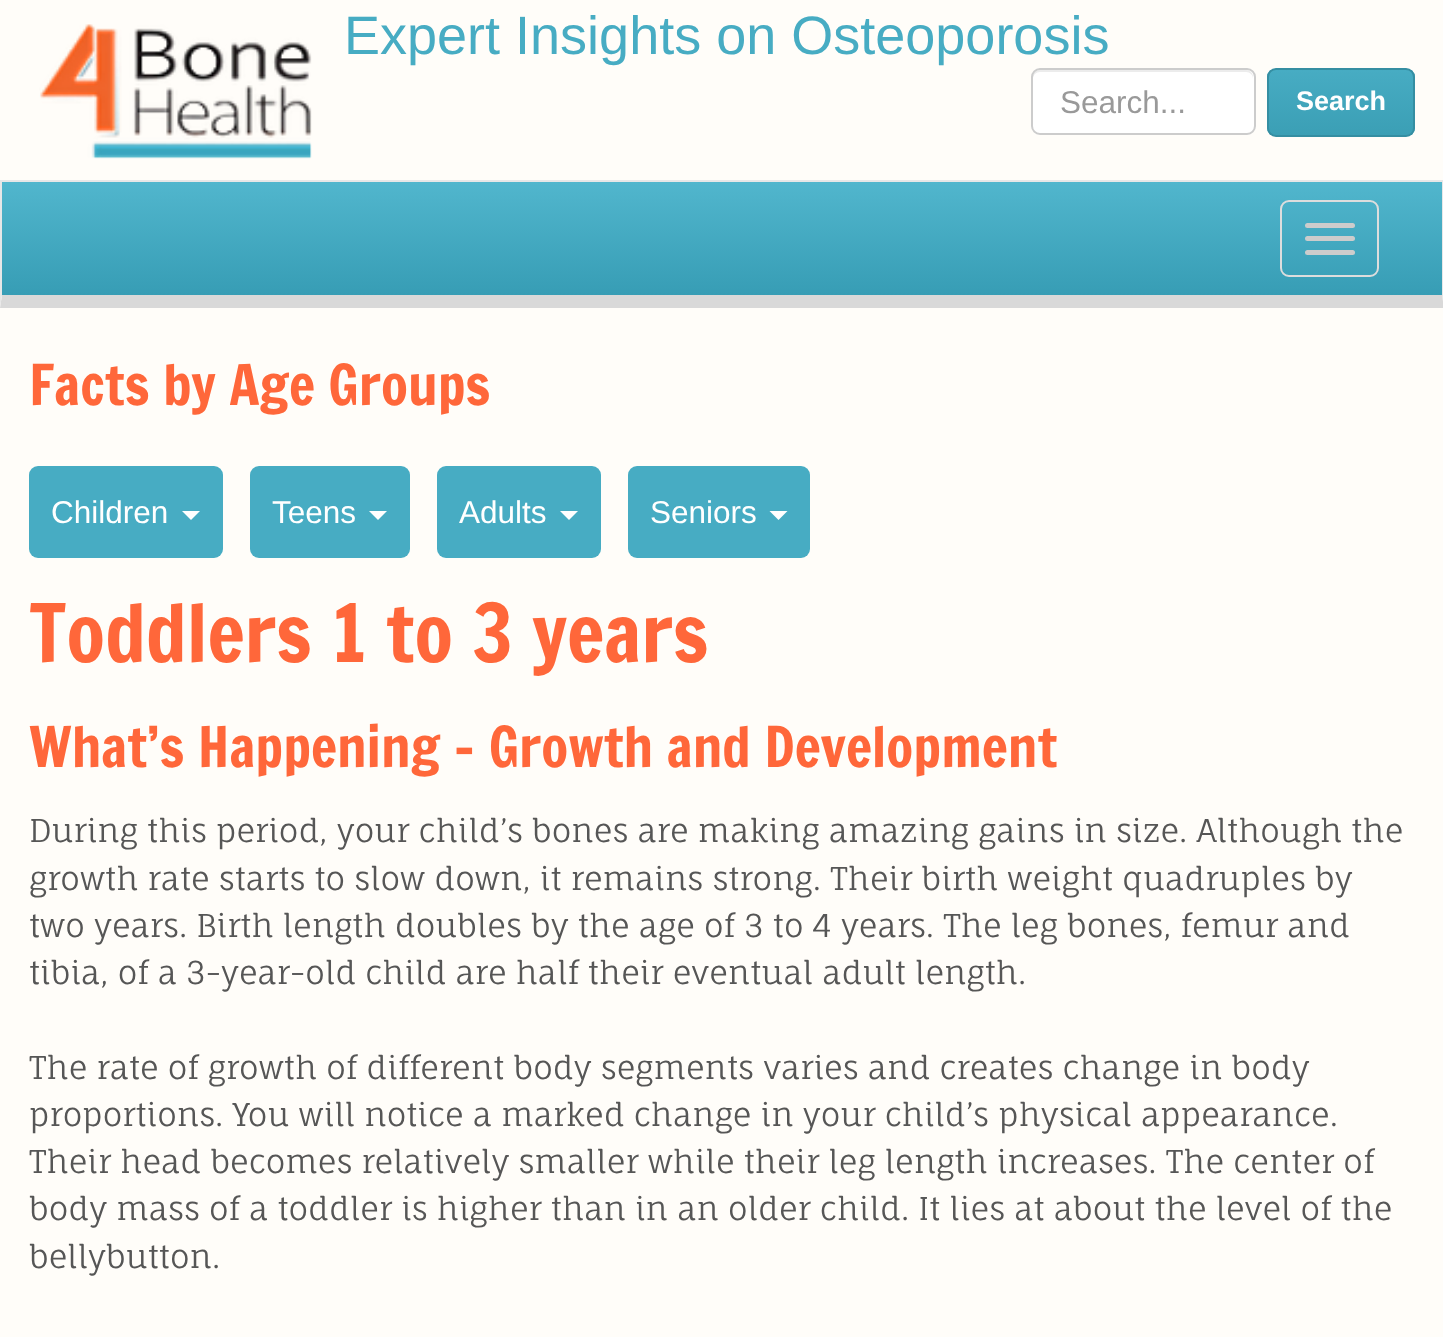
<!DOCTYPE html>
<meta charset="utf-8">
<style>body { margin: 0 } canvas { display: block }</style>
<canvas id="canvas" width="1443" height="1337"></canvas>
<script type="module">
  const canvas = document.getElementById("canvas");
  const ctx = canvas.getContext("2d");
  ctx.miterLimit = 4;
  ctx.fontKerning = "normal";
  async function loadImage(src) {
    const img = new Image();
    img.src = src;
    await img.decode();
    return img;
  }
  let gradient;

  ctx.fillStyle = "#fffdf9";
  ctx.fillRect(0, 0, 1443, 1337);
  ctx.drawImage(await loadImage("img1.png"), 39, 24, 273, 135);
  ctx.font = "54px Liberation Sans";
  ctx.fillStyle = "#47acc3";
  ctx.fillText("Expert Insights on Osteoporosis", 344, 54);
  ctx.fillStyle = "#ffffff";
  ctx.beginPath();
  ctx.roundRect(1031, 68, 225, 67, 9);
  ctx.fill();
  ctx.fillStyle = "#ececec";
  ctx.beginPath();
  ctx.moveTo(1040, 72);
  ctx.lineTo(1246, 72);
  ctx.bezierCurveTo(1250, 72, 1253, 75, 1253, 79);
  ctx.lineTo(1253, 77);
  ctx.bezierCurveTo(1253, 73, 1250, 70, 1246, 70);
  ctx.lineTo(1040, 70);
  ctx.bezierCurveTo(1036, 70, 1033, 73, 1033, 77);
  ctx.lineTo(1033, 79);
  ctx.bezierCurveTo(1033, 75, 1036, 72, 1040, 72);
  ctx.closePath();
  ctx.fill();
  ctx.beginPath();
  ctx.roundRect(1032, 69, 223, 65, 8);
  ctx.strokeStyle = "#cccccc";
  ctx.lineWidth = 2;
  ctx.stroke();
  ctx.font = "31.5px Liberation Sans";
  ctx.fillStyle = "#999999";
  ctx.fillText("Search...", 1060, 113);
  ctx.save();
  ctx.beginPath();
  ctx.roundRect(1267, 68, 148, 69, 9);
  ctx.clip();
  gradient = ctx.createLinearGradient(1341, 70, 1341, 135);
  gradient.addColorStop(0, "#47acc3");
  gradient.addColorStop(1, "#3b9fb5");
  ctx.fillStyle = gradient;
  ctx.fillRect(1267, 70, 148, 65);
  ctx.restore();
  ctx.beginPath();
  ctx.roundRect(1268, 69, 146, 67, 8);
  ctx.strokeStyle = "#358ea2";
  ctx.stroke();
  ctx.font = "bold 27px Liberation Sans";
  ctx.fillStyle = "#ffffff";
  ctx.fillText("Search", 1296, 110);
  gradient = ctx.createLinearGradient(722, 182, 722, 295);
  gradient.addColorStop(0, "#51b6cd");
  gradient.addColorStop(1, "#379db5");
  ctx.fillStyle = gradient;
  ctx.fillRect(2, 182, 1440, 113);
  ctx.fillStyle = "#e7e7e7";
  ctx.fillRect(0, 180, 1443, 2);
  ctx.beginPath();
  ctx.moveTo(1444, 180);
  ctx.lineTo(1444, 308);
  ctx.lineTo(1442, 295);
  ctx.lineTo(1442, 182);
  ctx.closePath();
  ctx.fill();
  ctx.fillStyle = "#d9d9d9";
  ctx.beginPath();
  ctx.moveTo(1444, 308);
  ctx.lineTo(0, 308);
  ctx.lineTo(2, 295);
  ctx.lineTo(1442, 295);
  ctx.closePath();
  ctx.fill();
  ctx.fillStyle = "#e7e7e7";
  ctx.beginPath();
  ctx.moveTo(0, 308);
  ctx.lineTo(0, 180);
  ctx.lineTo(2, 182);
  ctx.lineTo(2, 295);
  ctx.closePath();
  ctx.fill();
  ctx.beginPath();
  ctx.roundRect(1281, 201, 97, 75, 8);
  ctx.strokeStyle = "#dddddd";
  ctx.stroke();
  ctx.fillStyle = "#cccccc";
  ctx.beginPath();
  ctx.roundRect(1305, 223, 50, 5, 2.5);
  ctx.fill();
  ctx.beginPath();
  ctx.roundRect(1305, 236, 50, 5, 2.5);
  ctx.fill();
  ctx.beginPath();
  ctx.roundRect(1305, 250, 50, 5, 2.5);
  ctx.fill();
  ctx.font = "55.1px Francois One";
  ctx.fillStyle = "#ff673a";
  ctx.fillText("Facts by Age Groups", 29, 405);
  ctx.fillStyle = "#47acc3";
  ctx.beginPath();
  ctx.roundRect(29, 466, 194, 92, 9);
  ctx.fill();
  ctx.font = "31.5px Liberation Sans";
  ctx.fillStyle = "#ffffff";
  ctx.fillText("Children", 51, 523);
  ctx.beginPath();
  ctx.moveTo(182, 511);
  ctx.lineTo(200, 511);
  ctx.lineTo(191, 520);
  ctx.closePath();
  ctx.fill();
  ctx.fillStyle = "#47acc3";
  ctx.beginPath();
  ctx.roundRect(250, 466, 160, 92, 9);
  ctx.fill();
  ctx.fillStyle = "#ffffff";
  ctx.fillText("Teens", 272, 523);
  ctx.beginPath();
  ctx.moveTo(369, 511);
  ctx.lineTo(387, 511);
  ctx.lineTo(378, 520);
  ctx.closePath();
  ctx.fill();
  ctx.fillStyle = "#47acc3";
  ctx.beginPath();
  ctx.roundRect(437, 466, 164, 92, 9);
  ctx.fill();
  ctx.fillStyle = "#ffffff";
  ctx.fillText("Adults", 459, 523);
  ctx.beginPath();
  ctx.moveTo(560, 511);
  ctx.lineTo(578, 511);
  ctx.lineTo(569, 520);
  ctx.closePath();
  ctx.fill();
  ctx.fillStyle = "#47acc3";
  ctx.beginPath();
  ctx.roundRect(628, 466, 182, 92, 9);
  ctx.fill();
  ctx.fillStyle = "#ffffff";
  ctx.fillText("Seniors", 650, 523);
  ctx.beginPath();
  ctx.moveTo(769.5, 511);
  ctx.lineTo(787.5, 511);
  ctx.lineTo(778.5, 520);
  ctx.closePath();
  ctx.fill();
  ctx.font = "78.75px Francois One";
  ctx.fillStyle = "#ff673a";
  ctx.fillText("Toddlers 1 to 3 years", 29, 662);
  ctx.font = "55.1px Francois One";
  ctx.fillText("What’s Happening – Growth and Development", 29, 767);
  ctx.font = "31.5px Fauna One";
  ctx.fillStyle = "#565656";
  ctx.fillText("During this period, your child’s bones are making amazing gains in size. Although the", 29, 842);
  ctx.fillText("growth rate starts to slow down, it remains strong. Their birth weight quadruples by", 29, 890);
  ctx.fillText("two years. Birth length doubles by the age of 3 to 4 years. The leg bones, femur and", 29, 937);
  ctx.fillText("tibia, of a 3-year-old child are half their eventual adult length.", 29, 984);
  ctx.fillText("The rate of growth of different body segments varies and creates change in body", 29, 1079);
  ctx.fillText("proportions. You will notice a marked change in your child’s physical appearance.", 29, 1126);
  ctx.fillText("Their head becomes relatively smaller while their leg length increases. The center of", 29, 1173);
  ctx.fillText("body mass of a toddler is higher than in an older child. It lies at about the level of the", 29, 1220);
  ctx.fillText("bellybutton.", 29, 1268);
</script>
